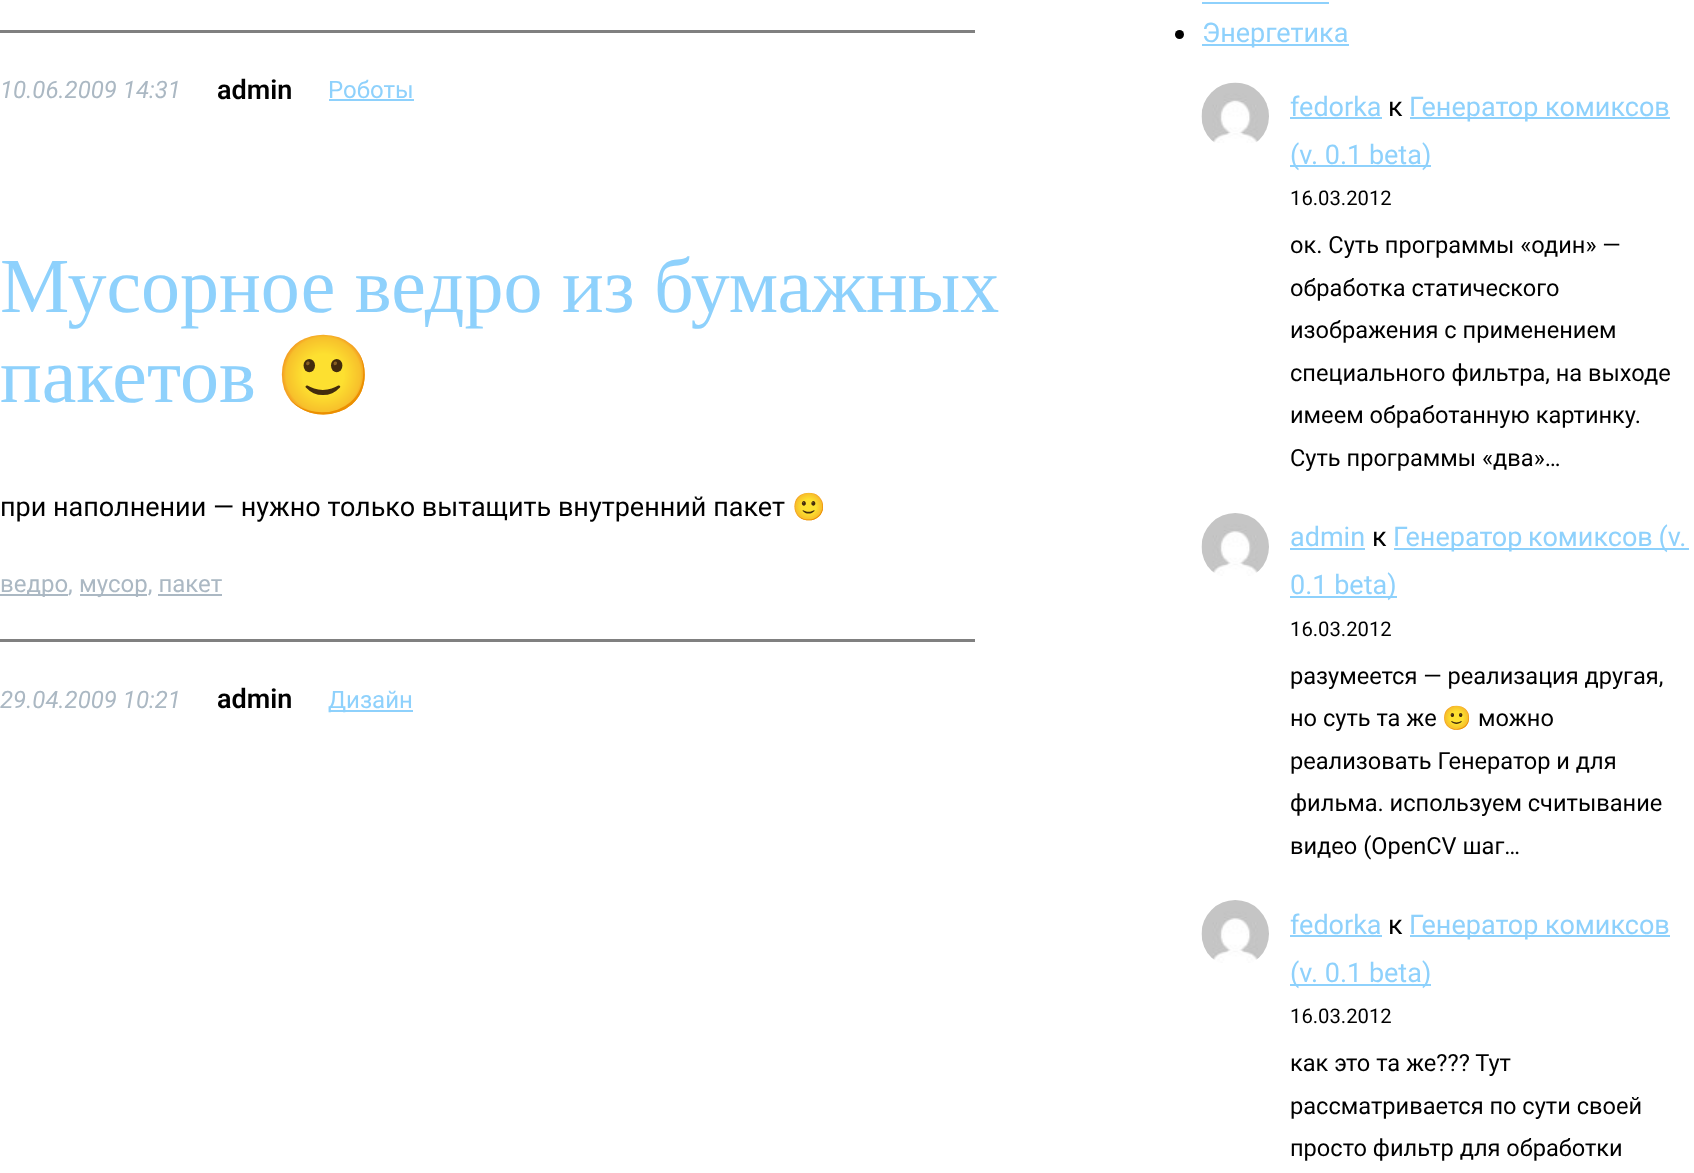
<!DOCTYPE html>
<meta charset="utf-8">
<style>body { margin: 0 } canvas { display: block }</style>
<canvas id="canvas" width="1694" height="1173"></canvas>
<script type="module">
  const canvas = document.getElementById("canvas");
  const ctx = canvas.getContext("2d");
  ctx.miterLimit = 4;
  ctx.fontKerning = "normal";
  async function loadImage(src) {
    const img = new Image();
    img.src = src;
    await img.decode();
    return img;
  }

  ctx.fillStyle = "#ffffff";
  ctx.fillRect(0, 0, 1694, 1173);
  ctx.fillStyle = "#808080";
  ctx.fillRect(0, 30, 975, 3);
  ctx.font = "italic 24px Roboto";
  ctx.fillStyle = "#abb8c3";
  ctx.fillText("10.06.2009 14:31", 0, 98);
  ctx.font = "600 27px Roboto";
  ctx.fillStyle = "#000000";
  ctx.fillText("admin", 217, 99);
  ctx.font = "24px Roboto";
  ctx.fillStyle = "#8ed1fc";
  ctx.fillText("Роботы", 328, 98);
  ctx.fillRect(329, 99, 85, 2);
  ctx.font = "78px Liberation Serif";
  ctx.fillText("Мусорное ведро из бумажных", 0, 312);
  ctx.fillText("пакетов", 0, 402);
  ctx.font = "78px Noto Color Emoji";
  ctx.fillText("🙂", 275, 402);
  ctx.font = "27px Roboto";
  ctx.fillStyle = "#000000";
  ctx.fillText("при наполнении — нужно только вытащить внутренний пакет", 0, 516);
  ctx.font = "27px Noto Color Emoji";
  ctx.fillText("🙂", 792, 516);
  ctx.fillStyle = "#abb8c3";
  ctx.fillRect(0, 594, 68, 2);
  ctx.font = "24px Roboto";
  ctx.fillText("ведро,", 0, 592);
  ctx.fillRect(80, 594, 67, 2);
  ctx.fillText("мусор, пакет", 79, 592);
  ctx.fillRect(158, 594, 64, 2);
  ctx.fillStyle = "#808080";
  ctx.fillRect(0, 639, 975, 3);
  ctx.font = "italic 24px Roboto";
  ctx.fillStyle = "#abb8c3";
  ctx.fillText("29.04.2009 10:21", 0, 708);
  ctx.font = "600 27px Roboto";
  ctx.fillStyle = "#000000";
  ctx.fillText("admin", 217, 708);
  ctx.fillStyle = "#8ed1fc";
  ctx.fillRect(329, 710, 84, 2);
  ctx.font = "24px Roboto";
  ctx.fillText("Дизайн", 328, 708);
  ctx.fillRect(1202, 2, 127, 2);
  ctx.fillStyle = "#000000";
  ctx.beginPath();
  ctx.arc(1179.5, 34.5, 4.5, 0, Math.PI * 2);
  ctx.fill();
  ctx.fillStyle = "#8ed1fc";
  ctx.fillRect(1202, 44, 147, 2);
  ctx.font = "27px Roboto";
  ctx.fillText("Энергетика", 1202, 42);
  ctx.drawImage(await loadImage("img1.png"), 1201, 82, 68, 61);
  ctx.fillText("fedorka", 1290, 116);
  ctx.fillRect(1290, 117, 92, 2);
  ctx.fillStyle = "#000000";
  ctx.fillText("к", 1388, 116);
  ctx.fillStyle = "#8ed1fc";
  ctx.fillRect(1410, 117, 260, 2);
  ctx.fillText("Генератор комиксов", 1409, 116);
  ctx.fillRect(1290, 165, 141, 2);
  ctx.fillText("(v. 0.1 beta)", 1290, 164);
  ctx.font = "20.25px Roboto";
  ctx.fillStyle = "#000000";
  ctx.fillText("16.03.2012", 1290, 205);
  ctx.font = "23.6px Roboto";
  ctx.fillText("ок. Суть программы «один» —", 1290, 253);
  ctx.fillText("обработка статического", 1290, 296);
  ctx.fillText("изображения с применением", 1290, 338);
  ctx.fillText("специального фильтра, на выходе", 1290, 381);
  ctx.fillText("имеем обработанную картинку.", 1290, 423);
  ctx.fillText("Суть программы «два»…", 1290, 466);
  ctx.drawImage(await loadImage("img2.png"), 1201, 513, 68, 63);
  ctx.font = "27px Roboto";
  ctx.fillStyle = "#8ed1fc";
  ctx.fillText("admin", 1290, 546);
  ctx.fillRect(1290, 548, 75, 2);
  ctx.fillStyle = "#000000";
  ctx.fillText("к", 1372, 546);
  ctx.fillStyle = "#8ed1fc";
  ctx.fillRect(1394, 548, 295, 2);
  ctx.wordSpacing = "-1px";
  ctx.fillText("Генератор комиксов (v.", 1393, 546);
  ctx.fillRect(1290, 596, 107, 2);
  ctx.wordSpacing = "0px";
  ctx.fillText("0.1 beta)", 1290, 594);
  ctx.font = "20.25px Roboto";
  ctx.fillStyle = "#000000";
  ctx.fillText("16.03.2012", 1290, 636);
  ctx.font = "23.6px Roboto";
  ctx.fillText("разумеется — реализация другая,", 1290, 684);
  ctx.fillText("но суть та же", 1290, 726);
  ctx.font = "23.6px Noto Color Emoji";
  ctx.fillText("🙂", 1442, 726);
  ctx.font = "23.6px Roboto";
  ctx.fillText("можно", 1478, 726);
  ctx.fillText("реализовать Генератор и для", 1290, 769);
  ctx.fillText("фильма. используем считывание", 1290, 811);
  ctx.fillText("видео (OpenCV шаг…", 1290, 854);
  ctx.drawImage(await loadImage("img3.png"), 1201, 900, 68, 63);
  ctx.font = "27px Roboto";
  ctx.fillStyle = "#8ed1fc";
  ctx.fillText("fedorka", 1290, 934);
  ctx.fillRect(1290, 935, 92, 2);
  ctx.fillStyle = "#000000";
  ctx.fillText("к", 1388, 934);
  ctx.fillStyle = "#8ed1fc";
  ctx.fillRect(1410, 935, 260, 2);
  ctx.fillText("Генератор комиксов", 1409, 934);
  ctx.fillRect(1290, 984, 141, 2);
  ctx.fillText("(v. 0.1 beta)", 1290, 982);
  ctx.font = "20.25px Roboto";
  ctx.fillStyle = "#000000";
  ctx.fillText("16.03.2012", 1290, 1023);
  ctx.font = "23.6px Roboto";
  ctx.fillText("как это та же??? Тут", 1290, 1071);
  ctx.fillText("рассматривается по сути своей", 1290, 1114);
  ctx.fillText("просто фильтр для обработки", 1290, 1156);
</script>
